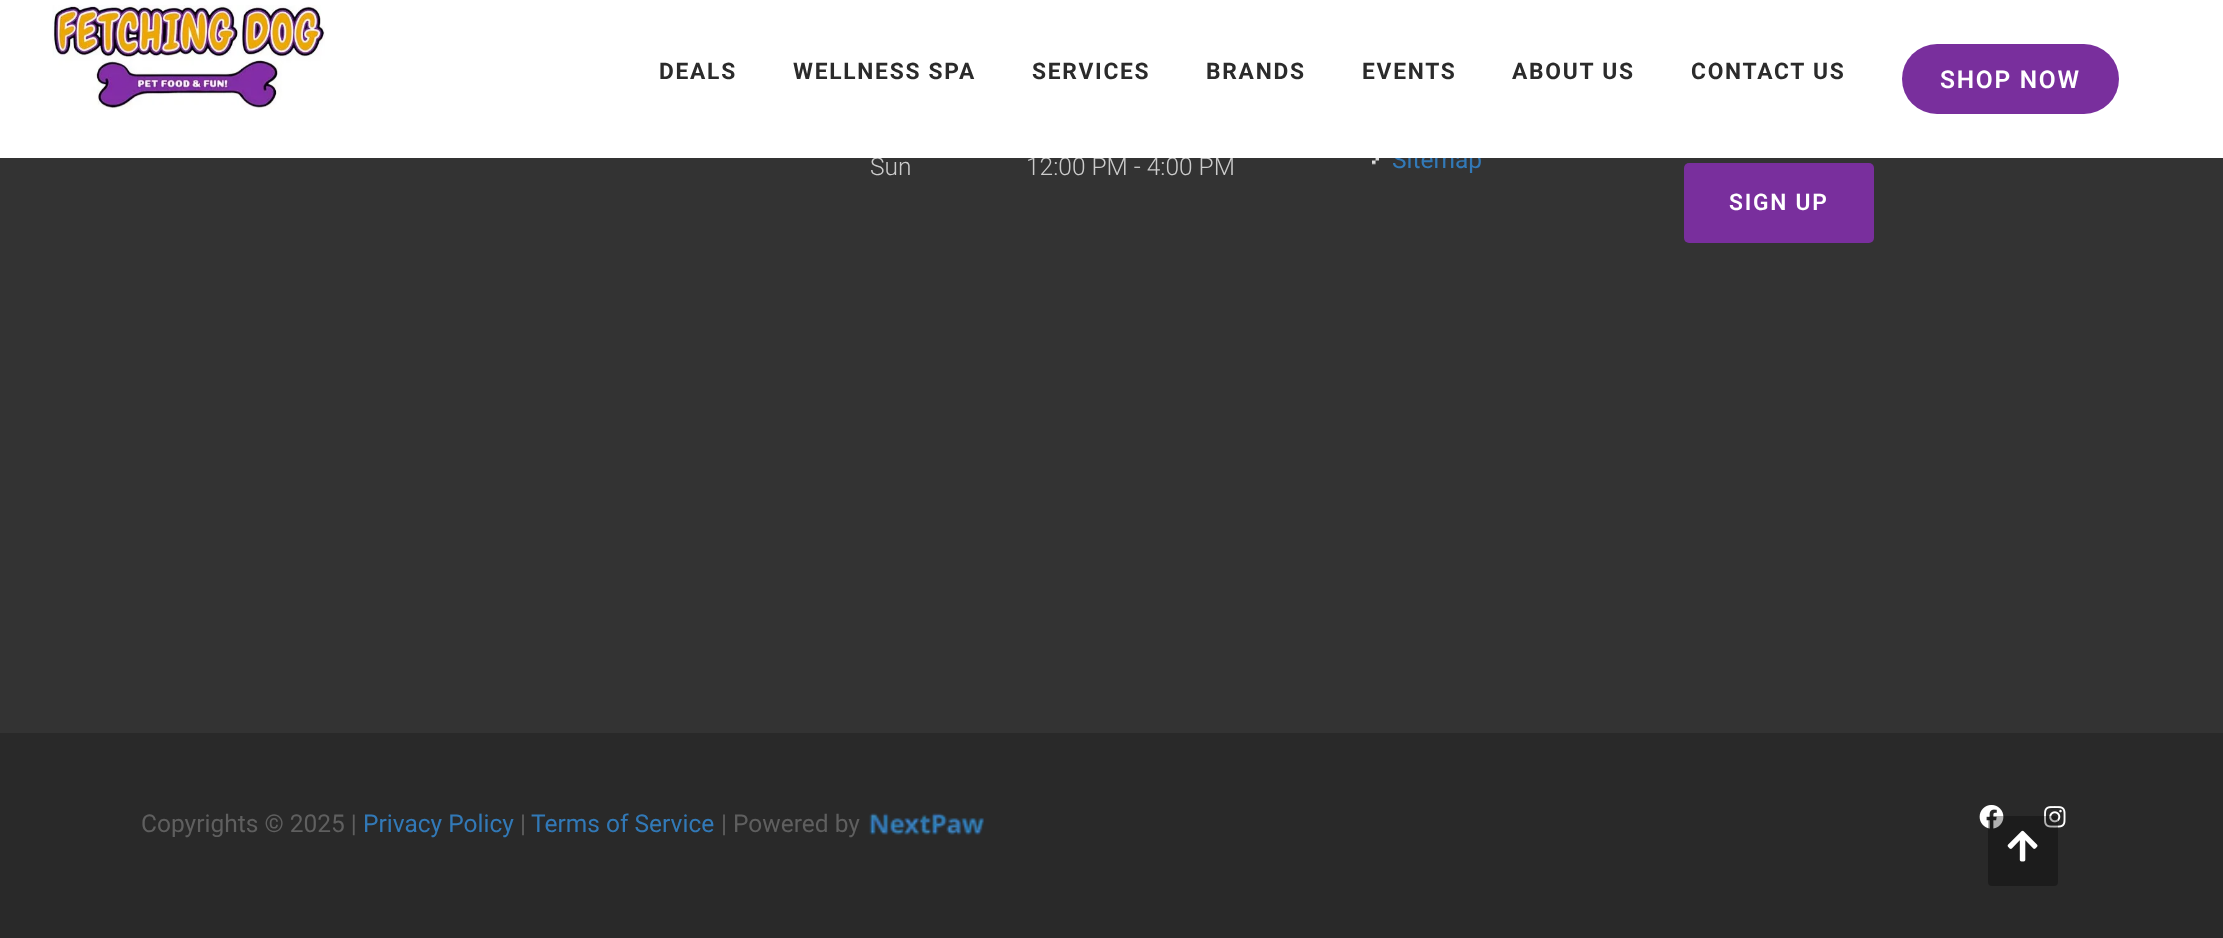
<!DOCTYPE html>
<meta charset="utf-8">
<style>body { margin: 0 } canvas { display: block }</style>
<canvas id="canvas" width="2223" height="938"></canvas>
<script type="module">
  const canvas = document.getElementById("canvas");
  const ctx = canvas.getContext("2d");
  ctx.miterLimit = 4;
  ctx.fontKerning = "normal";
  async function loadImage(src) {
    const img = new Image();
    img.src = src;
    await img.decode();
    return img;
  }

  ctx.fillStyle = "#333333";
  ctx.fillRect(0, 0, 2223, 938);
  ctx.font = "300 24.5px Roboto";
  ctx.fillStyle = "#cccccc";
  ctx.fillText("Sun", 870, 175);
  ctx.fillText("12:00 PM - 4:00 PM", 1026, 175);
  ctx.font = "24.5px Roboto";
  ctx.fillStyle = "#3279b7";
  ctx.fillText("Sitemap", 1392, 168);
  ctx.fillStyle = "#ffffff";
  ctx.fillRect(0, 0, 2223, 158);
  ctx.drawImage(await loadImage("img1.png"), 52, 5, 273, 105);
  ctx.letterSpacing = "1.75px";
  ctx.font = "bold 22.75px Roboto";
  ctx.fillStyle = "#2b2b2b";
  ctx.fillText("DEALS", 659, 79);
  ctx.fillText("WELLNESS SPA", 793, 79);
  ctx.fillText("SERVICES", 1032, 79);
  ctx.fillText("BRANDS", 1206, 79);
  ctx.fillText("EVENTS", 1362, 79);
  ctx.fillText("ABOUT US", 1512, 79);
  ctx.fillText("CONTACT US", 1691, 79);
  ctx.fillStyle = "#792f9d";
  ctx.beginPath();
  ctx.roundRect(1902, 44, 217, 70, 35);
  ctx.fill();
  ctx.font = "600 24.5px Roboto";
  ctx.fillStyle = "#ffffff";
  ctx.fillText("SHOP NOW", 1940, 88);
  ctx.drawImage(await loadImage("img2.png"), 1372, 158, 7, 7);
  ctx.fillStyle = "#792f9d";
  ctx.beginPath();
  ctx.roundRect(1684, 163, 190, 80, 5);
  ctx.fill();
  ctx.font = "600 22.75px Roboto";
  ctx.fillStyle = "#ffffff";
  ctx.fillText("SIGN UP", 1729, 210);
  ctx.fillStyle = "#292929";
  ctx.fillRect(0, 733, 2223, 205);
  ctx.letterSpacing = "0px";
  ctx.font = "24.5px Roboto";
  ctx.fillStyle = "#5f5f5f";
  ctx.fillText("Copyrights © 2025 |", 141, 832);
  ctx.fillStyle = "#3279b7";
  ctx.fillText("Privacy Policy", 363, 832);
  ctx.fillStyle = "#5f5f5f";
  ctx.fillText("|", 520, 832);
  ctx.fillStyle = "#3279b7";
  ctx.fillText("Terms of Service", 531, 832);
  ctx.fillStyle = "#5f5f5f";
  ctx.fillText("| Powered by", 721, 832);
  ctx.drawImage(await loadImage("img3.png"), 869, 813, 115, 22);
  ctx.drawImage(await loadImage("img4.png"), 1979, 805, 25, 24);
  ctx.drawImage(await loadImage("img5.png"), 2044, 806, 22, 22);
  ctx.fillStyle = "rgba(0, 0, 0, 0.3)";
  ctx.beginPath();
  ctx.roundRect(1988, 816, 70, 70, 4);
  ctx.fill();
  ctx.drawImage(await loadImage("img6.png"), 2007, 830, 31, 32);
</script>
